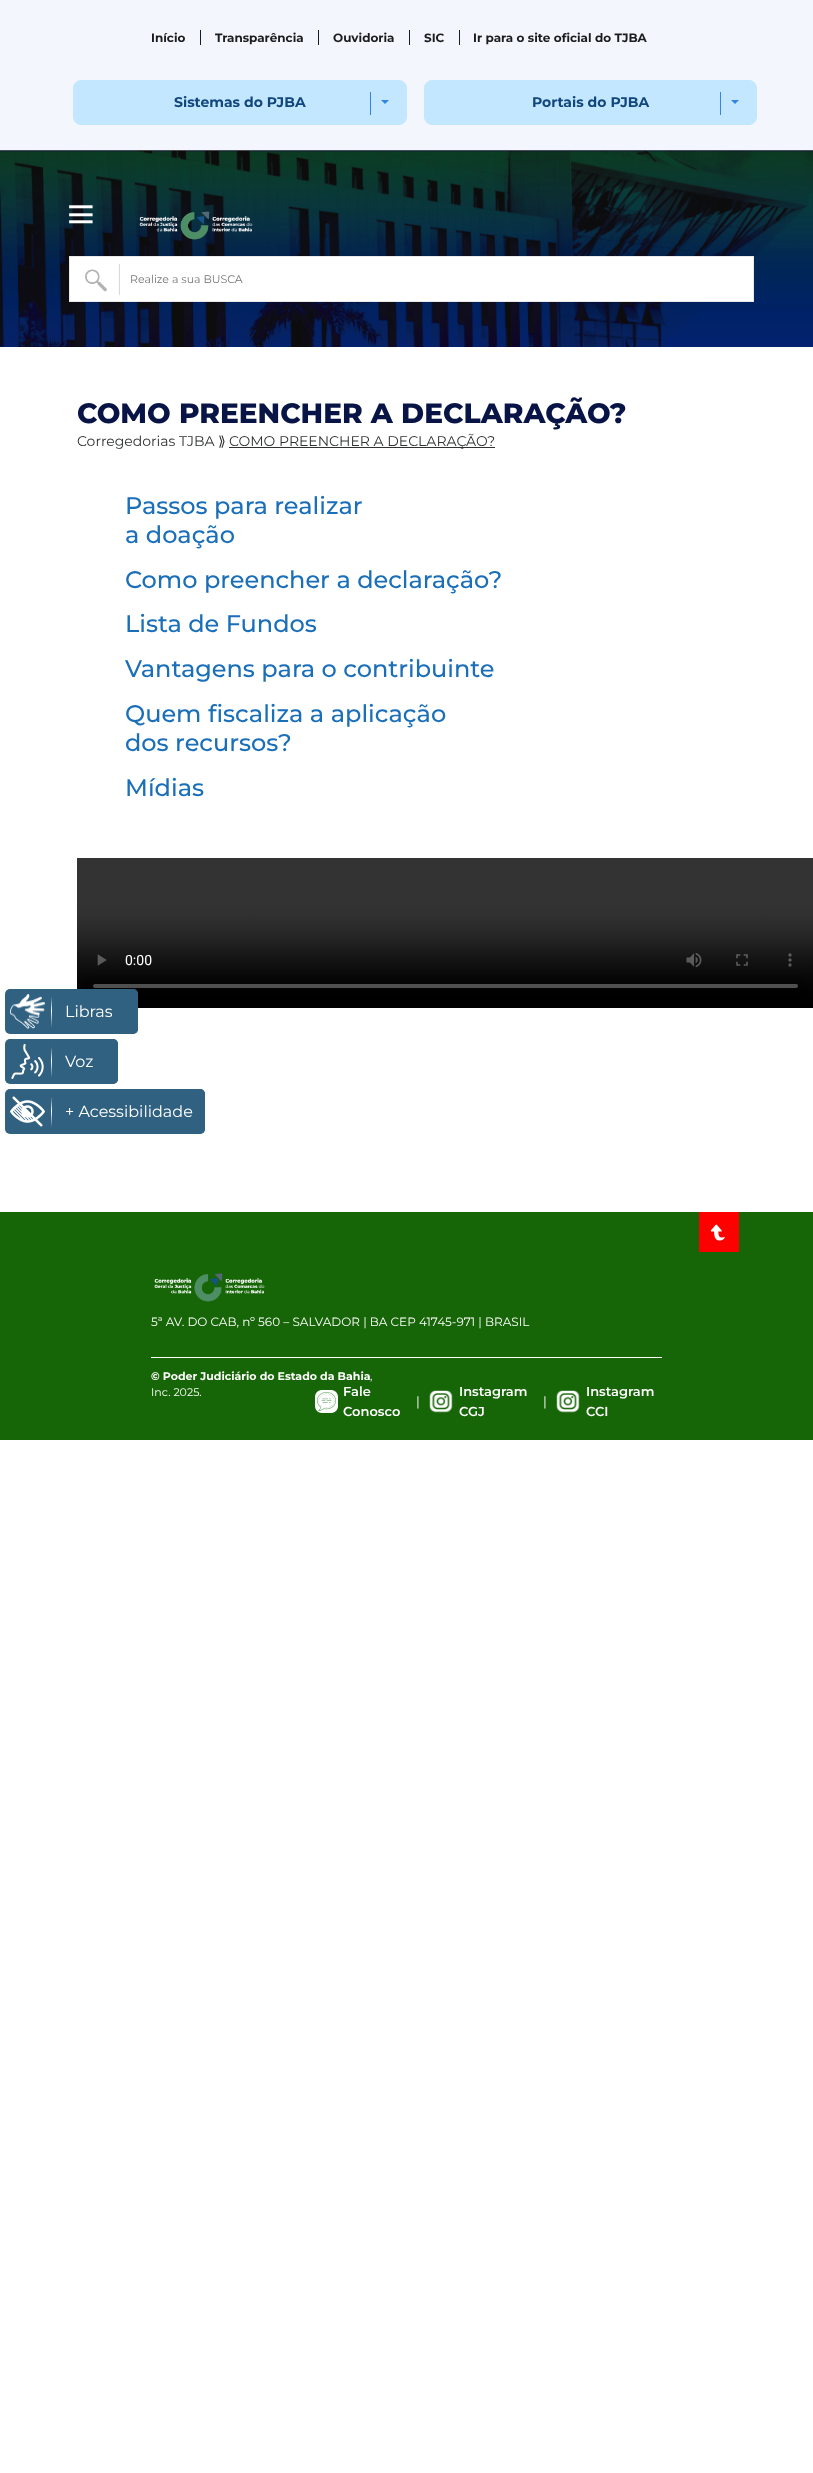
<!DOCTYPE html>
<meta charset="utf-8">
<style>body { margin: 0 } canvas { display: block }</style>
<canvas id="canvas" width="813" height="2473"></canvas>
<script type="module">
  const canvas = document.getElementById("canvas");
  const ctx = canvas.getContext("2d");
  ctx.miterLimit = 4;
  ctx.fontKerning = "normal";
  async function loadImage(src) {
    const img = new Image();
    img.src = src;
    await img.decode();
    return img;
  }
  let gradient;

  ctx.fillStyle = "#ffffff";
  ctx.fillRect(0, 0, 813, 2473);
  ctx.fillStyle = "#f3f6fc";
  ctx.fillRect(0, 0, 813, 150);
  ctx.font = "bold 12px Montserrat";
  ctx.fillStyle = "#1b1c1e";
  ctx.fillText("Início", 151, 42);
  ctx.fillRect(200, 30, 1, 15);
  ctx.fillText("Transparência", 215, 42);
  ctx.fillRect(318, 30, 1, 15);
  ctx.fillText("Ouvidoria", 333, 42);
  ctx.fillRect(409, 30, 1, 15);
  ctx.fillText("SIC", 424, 42);
  ctx.fillRect(459, 30, 1, 15);
  ctx.fillText("Ir para o site oficial do TJBA", 473, 42);
  ctx.fillStyle = "#c2e7ff";
  ctx.beginPath();
  ctx.roundRect(73.5, 80.5, 333, 44, 7.5);
  ctx.fill();
  ctx.strokeStyle = "#c2e7ff";
  ctx.stroke();
  ctx.font = "bold 14px Montserrat";
  ctx.fillStyle = "#12467c";
  ctx.fillText("Sistemas do PJBA", 174, 107);
  ctx.fillStyle = "#3186e4";
  ctx.fillRect(370, 92, 1, 23);
  ctx.beginPath();
  ctx.moveTo(381, 100);
  ctx.lineTo(389, 100);
  ctx.lineTo(385, 104);
  ctx.closePath();
  ctx.fill();
  ctx.fillStyle = "#c2e7ff";
  ctx.beginPath();
  ctx.roundRect(424.5, 80.5, 332, 44, 7.5);
  ctx.fill();
  ctx.stroke();
  ctx.fillStyle = "#12467c";
  ctx.fillText("Portais do PJBA", 532, 107);
  ctx.fillStyle = "#3186e4";
  ctx.fillRect(720, 92, 1, 23);
  ctx.beginPath();
  ctx.moveTo(731, 100);
  ctx.lineTo(739, 100);
  ctx.lineTo(735, 104);
  ctx.closePath();
  ctx.fill();
  ctx.drawImage(await loadImage("img1.png"), 0, 150, 813, 197);
  ctx.font = "600 25px Montserrat";
  ctx.fillStyle = "#ffffff";
  ctx.save();
  ctx.translate(74, 203);
  ctx.rotate(90 * Math.PI / 180);
  ctx.fillText("|", 0, 0);
  ctx.restore();
  ctx.save();
  ctx.translate(74, 211);
  ctx.rotate(90 * Math.PI / 180);
  ctx.fillText("|", 0, 0);
  ctx.restore();
  ctx.save();
  ctx.translate(74, 218);
  ctx.rotate(90 * Math.PI / 180);
  ctx.fillText("|", 0, 0);
  ctx.restore();
  ctx.drawImage(await loadImage("img2.png"), 139, 211, 114, 29);
  ctx.fillRect(70, 257, 683, 44);
  ctx.drawImage(await loadImage("img3.png"), 85, 264, 35, 31);
  ctx.strokeStyle = "#e9e9e9";
  ctx.strokeRect(69.5, 256.5, 684, 45);
  ctx.font = "11px Montserrat";
  ctx.fillStyle = "#757575";
  ctx.fillText("Realize a sua BUSCA", 130, 283);
  ctx.font = "800 28px Montserrat";
  ctx.fillStyle = "#081445";
  ctx.fillText("COMO PREENCHER A DECLARAÇÃO?", 77, 423);
  ctx.font = "14px Montserrat";
  ctx.fillStyle = "#303233";
  ctx.fillText("Corregedorias TJBA", 77, 446);
  ctx.font = "14px DejaVu Sans";
  ctx.fillText("⟫", 218, 446);
  ctx.fillRect(229, 447, 266, 1);
  ctx.font = "14px Montserrat";
  ctx.fillText("COMO PREENCHER A DECLARAÇÃO?", 229, 446);
  ctx.font = "500 24px Montserrat";
  ctx.fillStyle = "#1b6fb8";
  ctx.fillText("Passos para realizar", 125, 514);
  ctx.fillText("a doação", 125, 543);
  ctx.fillText("Como preencher a declaração?", 125, 588);
  ctx.fillText("Lista de Fundos", 125, 632);
  ctx.fillText("Vantagens para o contribuinte", 125, 677);
  ctx.fillText("Quem fiscaliza a aplicação", 125, 722);
  ctx.fillText("dos recursos?", 125, 751);
  ctx.fillText("Mídias", 125, 796);
  ctx.drawImage(await loadImage("img4.png"), 77, 858, 736, 150);
  ctx.fillStyle = "#316181";
  ctx.beginPath();
  ctx.roundRect(5, 989, 133, 45, 5);
  ctx.fill();
  ctx.drawImage(await loadImage("img5.png"), 10, 994, 35, 35);
  ctx.beginPath();
  ctx.roundRect(45, 989, 93, 45, [0, 5, 5, 0]);
  ctx.fill();
  gradient = ctx.createLinearGradient(52, 1034, 52, 989);
  gradient.addColorStop(0.14, "#316181");
  gradient.addColorStop(0.52, "#ffffff");
  gradient.addColorStop(0.83, "#316181");
  ctx.fillStyle = gradient;
  ctx.fillRect(51, 989, 1, 45);
  ctx.font = "16px Montserrat";
  ctx.fillStyle = "#ffffff";
  ctx.fillText("Libras", 65, 1017);
  ctx.fillStyle = "#316181";
  ctx.beginPath();
  ctx.roundRect(5, 1039, 113, 45, 5);
  ctx.fill();
  ctx.drawImage(await loadImage("img6.png"), 11, 1044, 33, 35);
  ctx.beginPath();
  ctx.roundRect(45, 1039, 73, 45, [0, 5, 5, 0]);
  ctx.fill();
  gradient = ctx.createLinearGradient(52, 1084, 52, 1039);
  gradient.addColorStop(0.14, "#316181");
  gradient.addColorStop(0.52, "#ffffff");
  gradient.addColorStop(0.83, "#316181");
  ctx.fillStyle = gradient;
  ctx.fillRect(51, 1039, 1, 45);
  ctx.fillStyle = "#ffffff";
  ctx.fillText("Voz", 65, 1067);
  ctx.fillStyle = "#316181";
  ctx.beginPath();
  ctx.roundRect(5, 1089, 200, 45, 5);
  ctx.fill();
  ctx.drawImage(await loadImage("img7.png"), 10, 1096, 35, 31);
  ctx.beginPath();
  ctx.roundRect(45, 1089, 160, 45, [0, 5, 5, 0]);
  ctx.fill();
  gradient = ctx.createLinearGradient(52, 1134, 52, 1089);
  gradient.addColorStop(0.14, "#316181");
  gradient.addColorStop(0.52, "#ffffff");
  gradient.addColorStop(0.83, "#316181");
  ctx.fillStyle = gradient;
  ctx.fillRect(51, 1089, 1, 45);
  ctx.fillStyle = "#ffffff";
  ctx.fillText("+ Acessibilidade", 65, 1117);
  ctx.fillStyle = "#166506";
  ctx.fillRect(0, 1212, 813, 228);
  ctx.fillStyle = "#ff0000";
  ctx.fillRect(699, 1212, 40, 40);
  ctx.drawImage(await loadImage("img8.png"), 710, 1224, 15, 17);
  ctx.drawImage(await loadImage("img9.png"), 154, 1273, 111, 29);
  ctx.font = "12px Montserrat";
  ctx.fillStyle = "#ffffff";
  ctx.fillText("5ª AV. DO CAB, nº 560 – SALVADOR | BA CEP 41745-971 | BRASIL", 151, 1326);
  ctx.fillRect(151, 1357, 511, 1);
  ctx.font = "bold 11px Montserrat";
  ctx.fillText("© Poder Judiciário do Estado da Bahia", 151, 1380);
  ctx.font = "11px Montserrat";
  ctx.fillText(",", 370, 1380);
  ctx.fillText("Inc. 2025.", 151, 1396);
  ctx.drawImage(await loadImage("img10.png"), 315, 1390, 23, 23);
  ctx.font = "600 13px Montserrat";
  ctx.fillText("Fale", 343, 1396);
  ctx.fillText("Conosco", 343, 1416);
  ctx.font = "13px Montserrat";
  ctx.fillText("|", 416, 1406);
  ctx.drawImage(await loadImage("img11.png"), 429, 1390, 24, 23);
  ctx.font = "600 13px Montserrat";
  ctx.fillText("Instagram", 459, 1396);
  ctx.fillText("CGJ", 459, 1416);
  ctx.font = "13px Montserrat";
  ctx.fillText("|", 543, 1406);
  ctx.drawImage(await loadImage("img11.png"), 556, 1390, 24, 23);
  ctx.font = "600 13px Montserrat";
  ctx.fillText("Instagram", 586, 1396);
  ctx.fillText("CCI", 586, 1416);
</script>
